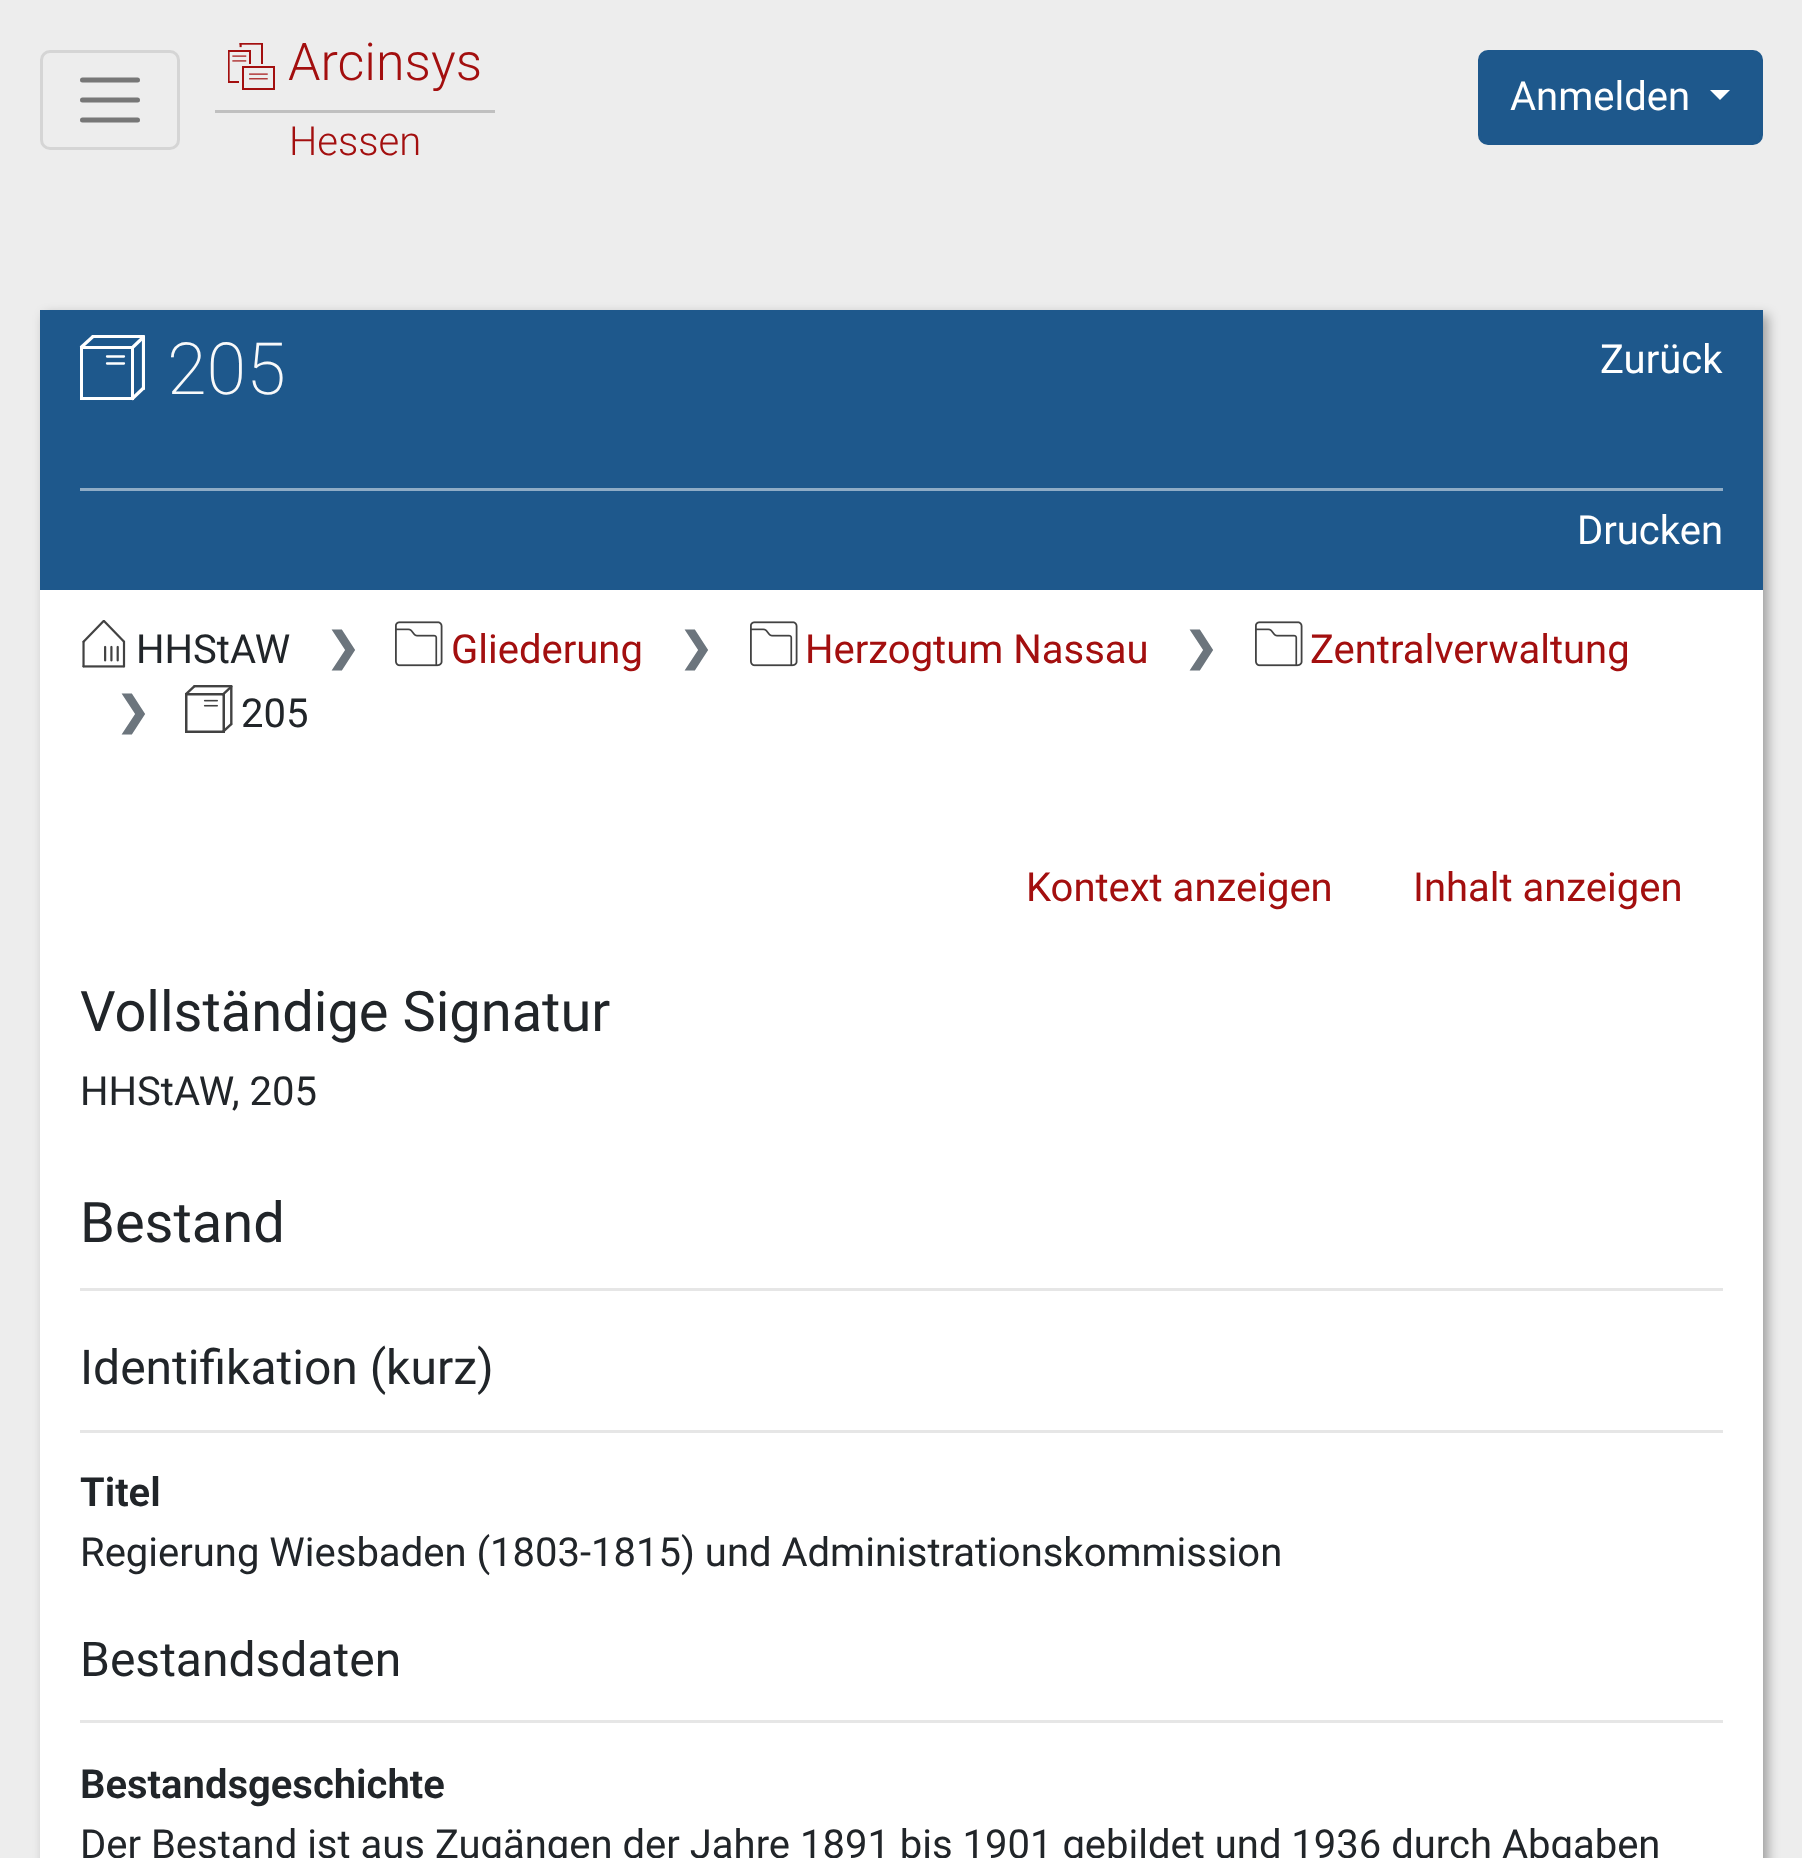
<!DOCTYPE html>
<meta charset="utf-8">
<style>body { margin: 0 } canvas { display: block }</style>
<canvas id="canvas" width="1802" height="1858"></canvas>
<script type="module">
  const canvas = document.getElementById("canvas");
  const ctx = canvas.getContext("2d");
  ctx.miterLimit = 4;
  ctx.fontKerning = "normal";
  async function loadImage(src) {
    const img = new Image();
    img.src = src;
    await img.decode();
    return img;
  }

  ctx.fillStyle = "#ededed";
  ctx.fillRect(0, 0, 1802, 1858);
  ctx.beginPath();
  ctx.roundRect(41.5, 51.5, 137, 97, 8.5);
  ctx.strokeStyle = "#d5d5d5";
  ctx.lineWidth = 3;
  ctx.stroke();
  ctx.beginPath();
  ctx.moveTo(82.5, 80);
  ctx.lineTo(137.5, 80);
  ctx.moveTo(82.5, 100);
  ctx.lineTo(137.5, 100);
  ctx.moveTo(82.5, 120);
  ctx.lineTo(137.5, 120);
  ctx.strokeStyle = "#777777";
  ctx.lineWidth = 5;
  ctx.lineCap = "round";
  ctx.stroke();
  ctx.drawImage(await loadImage("img1.png"), 228, 43, 47, 47);
  ctx.font = "300 52px Roboto";
  ctx.fillStyle = "#a30f0f";
  ctx.fillText("Arcinsys", 288, 80);
  ctx.fillStyle = "#c0c0c0";
  ctx.fillRect(215, 110, 280, 3);
  ctx.font = "300 40px Roboto";
  ctx.fillStyle = "#a30f0f";
  ctx.fillText("Hessen", 289, 155);
  ctx.fillStyle = "#1e588c";
  ctx.beginPath();
  ctx.roundRect(1479.5, 51.5, 282, 92, 8.5);
  ctx.fill();
  ctx.strokeStyle = "#1e588c";
  ctx.lineWidth = 3;
  ctx.stroke();
  ctx.font = "40px Roboto";
  ctx.fillStyle = "#ffffff";
  ctx.fillText("Anmelden", 1510, 110);
  ctx.beginPath();
  ctx.moveTo(1710, 90);
  ctx.lineTo(1730, 90);
  ctx.lineTo(1720, 100);
  ctx.closePath();
  ctx.fill();
  ctx.fillStyle = "rgba(0, 0, 0, 0.33)";
  ctx.filter = "blur(6px)";
  ctx.beginPath();
  ctx.rect(45, 315, 1723, 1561);
  ctx.fill();
  ctx.filter = "none";
  ctx.fillStyle = "#ffffff";
  ctx.fillRect(40, 590, 1723, 1268);
  ctx.fillStyle = "#1e588c";
  ctx.fillRect(40, 310, 1723, 280);
  ctx.strokeStyle = "#ffffff";
  ctx.strokeRect(81.5, 347.5, 51, 51);
  ctx.beginPath();
  ctx.moveTo(81.5, 347);
  ctx.lineTo(92.5, 337);
  ctx.lineWidth = 3.2;
  ctx.lineJoin = "round";
  ctx.stroke();
  ctx.beginPath();
  ctx.moveTo(132, 348);
  ctx.lineTo(143, 337.5);
  ctx.stroke();
  ctx.beginPath();
  ctx.moveTo(107, 356.5);
  ctx.lineTo(124, 356.5);
  ctx.moveTo(107, 363.5);
  ctx.lineTo(124, 363.5);
  ctx.lineWidth = 2.3;
  ctx.stroke();
  ctx.beginPath();
  ctx.moveTo(132.5, 398.5);
  ctx.lineTo(143, 388.5);
  ctx.lineWidth = 3.2;
  ctx.stroke();
  ctx.save();
  ctx.beginPath();
  ctx.rect(80, 335, 65, 65);
  ctx.clip();
  ctx.beginPath();
  ctx.moveTo(93, 336.5);
  ctx.lineTo(143.5, 336.5);
  ctx.stroke();
  ctx.beginPath();
  ctx.moveTo(143.5, 337);
  ctx.lineTo(143.5, 388.5);
  ctx.lineJoin = "miter";
  ctx.stroke();
  ctx.restore();
  ctx.font = "200 72px Roboto";
  ctx.fillStyle = "#f8f9fa";
  ctx.fillText("205", 167, 394);
  ctx.font = "40px Roboto";
  ctx.fillStyle = "#ffffff";
  ctx.fillText("Zurück", 1600, 373);
  ctx.fillStyle = "#8facc6";
  ctx.fillRect(80, 488, 1643, 3);
  ctx.fillStyle = "#ffffff";
  ctx.fillText("Drucken", 1577, 544);
  ctx.drawImage(await loadImage("img2.png"), 82, 620, 44, 48);
  ctx.fillStyle = "#212529";
  ctx.fillText("HHStAW", 136, 663);
  ctx.font = "bold 40px DejaVu Sans";
  ctx.fillStyle = "#6c757d";
  ctx.fillText("❯", 326, 661);
  ctx.drawImage(await loadImage("img3.png"), 395, 621, 48, 46);
  ctx.font = "40px Roboto";
  ctx.fillStyle = "#a30f0f";
  ctx.fillText("Gliederung", 451, 663);
  ctx.font = "bold 40px DejaVu Sans";
  ctx.fillStyle = "#6c757d";
  ctx.fillText("❯", 679, 661);
  ctx.drawImage(await loadImage("img3.png"), 750, 621, 48, 46);
  ctx.font = "40px Roboto";
  ctx.fillStyle = "#a30f0f";
  ctx.fillText("Herzogtum Nassau", 805, 663);
  ctx.font = "bold 40px DejaVu Sans";
  ctx.fillStyle = "#6c757d";
  ctx.fillText("❯", 1184, 661);
  ctx.drawImage(await loadImage("img3.png"), 1255, 621, 48, 46);
  ctx.font = "40px Roboto";
  ctx.fillStyle = "#a30f0f";
  ctx.fillText("Zentralverwaltung", 1310, 663);
  ctx.font = "bold 40px DejaVu Sans";
  ctx.fillStyle = "#6c757d";
  ctx.fillText("❯", 116, 725);
  ctx.drawImage(await loadImage("img4.png"), 185, 685, 48, 48);
  ctx.font = "40px Roboto";
  ctx.fillStyle = "#212529";
  ctx.fillText("205", 241, 727);
  ctx.fillStyle = "#a30f0f";
  ctx.fillText("Kontext anzeigen", 1026, 901);
  ctx.fillText("Inhalt anzeigen", 1413, 901);
  ctx.font = "56px Roboto";
  ctx.fillStyle = "#212529";
  ctx.fillText("Vollständige Signatur", 80, 1031);
  ctx.font = "40px Roboto";
  ctx.fillText("HHStAW, 205", 80, 1105);
  ctx.font = "56px Roboto";
  ctx.fillText("Bestand", 80, 1242);
  ctx.fillStyle = "#e6e6e6";
  ctx.fillRect(80, 1288, 1643, 3);
  ctx.font = "48px Roboto";
  ctx.fillStyle = "#212529";
  ctx.fillText("Identifikation (kurz)", 80, 1384);
  ctx.fillStyle = "#e6e6e6";
  ctx.fillRect(80, 1430, 1643, 3);
  ctx.font = "600 40px Roboto";
  ctx.fillStyle = "#212529";
  ctx.fillText("Titel", 80, 1506);
  ctx.font = "40px Roboto";
  ctx.fillText("Regierung Wiesbaden (1803-1815) und Administrationskommission", 80, 1566);
  ctx.font = "48px Roboto";
  ctx.fillText("Bestandsdaten", 80, 1676);
  ctx.fillStyle = "#e6e6e6";
  ctx.fillRect(80, 1720, 1643, 3);
  ctx.font = "600 40px Roboto";
  ctx.fillStyle = "#212529";
  ctx.fillText("Bestandsgeschichte", 80, 1798);
  ctx.font = "40px Roboto";
  ctx.fillText("Der Bestand ist aus Zugängen der Jahre 1891 bis 1901 gebildet und 1936 durch Abgaben", 80, 1858);
</script>
